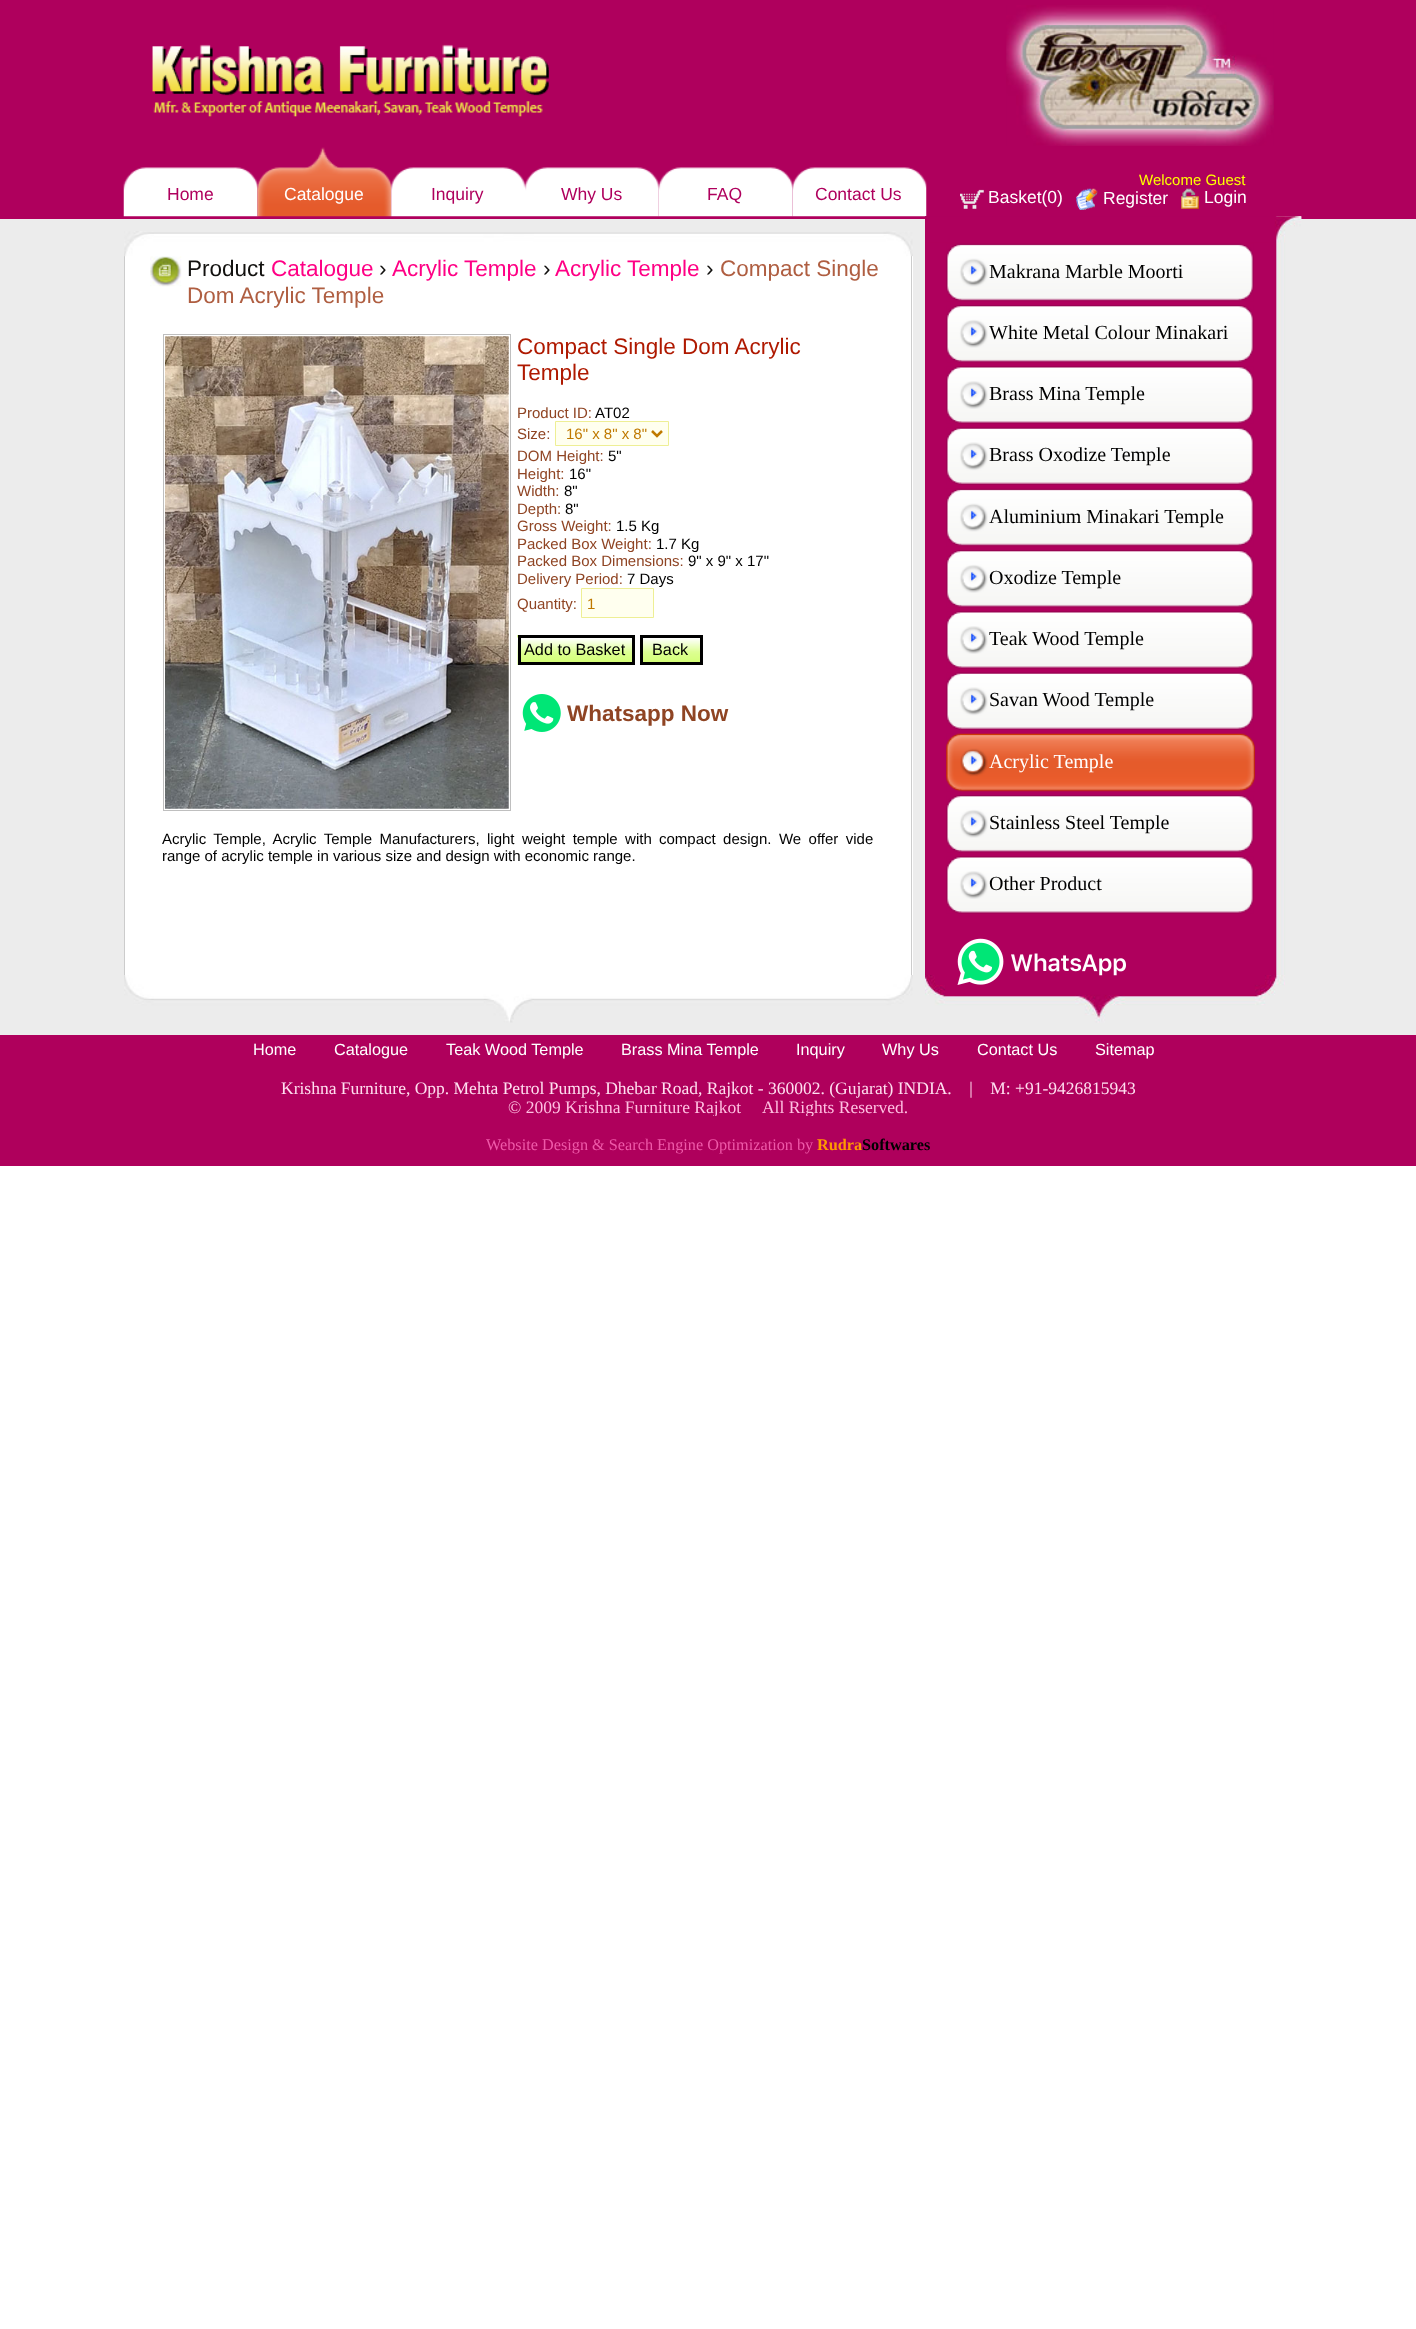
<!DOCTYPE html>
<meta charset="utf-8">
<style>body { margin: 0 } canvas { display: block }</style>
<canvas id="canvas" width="1416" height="2329"></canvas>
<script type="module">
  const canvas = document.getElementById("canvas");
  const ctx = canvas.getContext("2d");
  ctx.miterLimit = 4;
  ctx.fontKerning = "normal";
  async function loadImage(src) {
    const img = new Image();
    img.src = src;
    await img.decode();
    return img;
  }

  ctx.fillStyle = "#ffffff";
  ctx.fillRect(0, 0, 1416, 2329);
  ctx.fillStyle = "#ececec";
  ctx.fillRect(0, 219, 1416, 816);
  ctx.fillStyle = "#af005d";
  ctx.fillRect(0, 0, 1416, 219);
  ctx.drawImage(await loadImage("img1.png"), 152, 44, 397, 73);
  ctx.drawImage(await loadImage("img2.png"), 1006, 5, 268, 141);
  ctx.drawImage(await loadImage("img3.png"), 123, 167, 135, 50);
  ctx.font = "17.5px Liberation Sans";
  ctx.fillText("Home", 167, 200);
  ctx.drawImage(await loadImage("img4.png"), 257, 147, 135, 70);
  ctx.fillStyle = "#ffffff";
  ctx.fillText("Catalogue", 284, 200);
  ctx.drawImage(await loadImage("img5.png"), 391, 167, 134, 50);
  ctx.fillStyle = "#af005d";
  ctx.fillText("Inquiry", 431, 200);
  ctx.drawImage(await loadImage("img6.png"), 525, 167, 134, 50);
  ctx.fillText("Why Us", 561, 200);
  ctx.drawImage(await loadImage("img7.png"), 658, 167, 135, 50);
  ctx.fillText("FAQ", 707, 200);
  ctx.drawImage(await loadImage("img8.png"), 792, 167, 135, 50);
  ctx.fillText("Contact Us", 815, 200);
  ctx.font = "15px Liberation Sans";
  ctx.fillStyle = "#fdff00";
  ctx.fillText("Welcome Guest", 1139, 185);
  ctx.drawImage(await loadImage("img9.png"), 960, 189, 24, 20);
  ctx.font = "17.5px Liberation Sans";
  ctx.fillStyle = "#ffffff";
  ctx.fillText("Basket(0)", 988, 203);
  ctx.drawImage(await loadImage("img10.png"), 1076, 188, 22, 22);
  ctx.fillText("Register", 1103, 204);
  ctx.drawImage(await loadImage("img11.png"), 1181, 188, 18, 21);
  ctx.fillText("Login", 1204, 203);
  ctx.fillRect(125, 256, 788, 719);
  ctx.fillStyle = "#cccccc";
  ctx.fillRect(911, 256, 1, 719);
  ctx.fillRect(124, 256, 1, 719);
  ctx.drawImage(await loadImage("img13.png"), 150, 256, 32, 31);
  ctx.drawImage(await loadImage("img12.png"), 124, 231, 789, 26);
  ctx.font = "22.5px Liberation Sans";
  ctx.fillStyle = "#12110f";
  ctx.fillText("Product", 187, 276);
  ctx.fillStyle = "#ff0085";
  ctx.fillText("Catalogue", 271, 276);
  ctx.fillStyle = "#12110f";
  ctx.fillText("›", 379, 276);
  ctx.fillStyle = "#ff0085";
  ctx.fillText("Acrylic Temple", 392, 276);
  ctx.fillStyle = "#12110f";
  ctx.fillText("›", 543, 276);
  ctx.fillStyle = "#ff0085";
  ctx.fillText("Acrylic Temple", 555, 276);
  ctx.fillStyle = "#12110f";
  ctx.fillText("›", 706, 276);
  ctx.fillStyle = "#af5e41";
  ctx.fillText("Compact Single", 720, 276);
  ctx.fillText("Dom Acrylic Temple", 187, 303);
  ctx.strokeStyle = "#bfbfbf";
  ctx.strokeRect(163.5, 334.5, 347, 476);
  ctx.drawImage(await loadImage("img14.png"), 165, 336, 344, 473);
  ctx.fillStyle = "#af1900";
  ctx.fillText("Compact Single Dom Acrylic", 517, 354);
  ctx.fillText("Temple", 517, 380);
  ctx.font = "15px Liberation Sans";
  ctx.fillStyle = "#8f4423";
  ctx.fillText("Product ID:", 517, 418);
  ctx.fillStyle = "#000000";
  ctx.fillText("AT02", 595, 418);
  ctx.fillStyle = "#8f4423";
  ctx.fillText("Size:", 517, 439);
  ctx.fillStyle = "#ffffef";
  ctx.beginPath();
  ctx.rect(555.5, 421.5, 113, 24);
  ctx.fill();
  ctx.strokeStyle = "#eeef95";
  ctx.stroke();
  ctx.beginPath();
  ctx.moveTo(652, 431);
  ctx.lineTo(657, 436);
  ctx.lineTo(662, 431);
  ctx.strokeStyle = "#bf7900";
  ctx.lineWidth = 2.5;
  ctx.stroke();
  ctx.fillStyle = "#bf7900";
  ctx.fillText("16\" x 8\" x 8\"", 566, 439);
  ctx.fillStyle = "#8f4423";
  ctx.fillText("DOM Height:", 517, 461);
  ctx.fillStyle = "#000000";
  ctx.fillText("5\"", 608, 461);
  ctx.fillStyle = "#8f4423";
  ctx.fillText("Height:", 517, 479);
  ctx.fillStyle = "#000000";
  ctx.fillText("16\"", 569, 479);
  ctx.fillStyle = "#8f4423";
  ctx.fillText("Width:", 517, 496);
  ctx.fillStyle = "#000000";
  ctx.fillText("8\"", 564, 496);
  ctx.fillStyle = "#8f4423";
  ctx.fillText("Depth:", 517, 514);
  ctx.fillStyle = "#000000";
  ctx.fillText("8\"", 565, 514);
  ctx.fillStyle = "#8f4423";
  ctx.fillText("Gross Weight:", 517, 531);
  ctx.fillStyle = "#000000";
  ctx.fillText("1.5 Kg", 616, 531);
  ctx.fillStyle = "#8f4423";
  ctx.fillText("Packed Box Weight:", 517, 549);
  ctx.fillStyle = "#000000";
  ctx.fillText("1.7 Kg", 656, 549);
  ctx.fillStyle = "#8f4423";
  ctx.fillText("Packed Box Dimensions:", 517, 566);
  ctx.fillStyle = "#000000";
  ctx.fillText("9\" x 9\" x 17\"", 688, 566);
  ctx.fillStyle = "#8f4423";
  ctx.fillText("Delivery Period:", 517, 584);
  ctx.fillStyle = "#000000";
  ctx.fillText("7 Days", 627, 584);
  ctx.fillStyle = "#8f4423";
  ctx.fillText("Quantity:", 517, 609);
  ctx.fillStyle = "#ffffef";
  ctx.beginPath();
  ctx.rect(581.5, 588.5, 72, 29);
  ctx.fill();
  ctx.strokeStyle = "#eeef95";
  ctx.lineWidth = 1;
  ctx.stroke();
  ctx.fillStyle = "#bf7900";
  ctx.fillText("1", 587, 609);
  ctx.drawImage(await loadImage("img15.png"), 517, 635, 115, 30);
  ctx.strokeStyle = "#000000";
  ctx.lineWidth = 3;
  ctx.strokeRect(519.5, 636.5, 114, 27);
  ctx.font = "16.25px Liberation Sans";
  ctx.fillStyle = "#000000";
  ctx.fillText("Add to Basket", 524, 655);
  ctx.drawImage(await loadImage("img16.png"), 643, 638, 57, 24);
  ctx.strokeRect(641.5, 636.5, 60, 27);
  ctx.fillText("Back", 652, 655);
  ctx.drawImage(await loadImage("img17.png"), 522, 694, 39, 38);
  ctx.font = "bold 22.5px Liberation Sans";
  ctx.fillStyle = "#8f4423";
  ctx.fillText("Whatsapp Now", 567, 721);
  ctx.wordSpacing = "3.25px";
  ctx.font = "15px Liberation Sans";
  ctx.fillStyle = "#000000";
  ctx.fillText("Acrylic Temple, Acrylic Temple Manufacturers, light weight temple with", 162, 844);
  ctx.fillText("compact design. We offer vide", 659, 844);
  ctx.wordSpacing = "0px";
  ctx.fillText("range of acrylic temple in various size and design with economic range.", 162, 861);
  ctx.drawImage(await loadImage("img18.png"), 925, 216, 377, 759);
  ctx.drawImage(await loadImage("img19.png"), 925, 216, 377, 27);
  ctx.drawImage(await loadImage("img20.png"), 946, 243, 308, 59);
  ctx.font = "20px Liberation Serif";
  ctx.fillText("Makrana Marble Moorti", 989, 278);
  ctx.drawImage(await loadImage("img21.png"), 946, 305, 308, 58);
  ctx.fillText("White Metal Colour Minakari", 989, 339);
  ctx.drawImage(await loadImage("img22.png"), 946, 366, 308, 58);
  ctx.fillText("Brass Mina Temple", 989, 400);
  ctx.drawImage(await loadImage("img23.png"), 946, 427, 308, 58);
  ctx.fillText("Brass Oxodize Temple", 989, 461);
  ctx.drawImage(await loadImage("img20.png"), 946, 488, 308, 59);
  ctx.fillText("Aluminium Minakari Temple", 989, 523);
  ctx.drawImage(await loadImage("img24.png"), 946, 550, 308, 58);
  ctx.fillText("Oxodize Temple", 989, 584);
  ctx.drawImage(await loadImage("img22.png"), 946, 611, 308, 58);
  ctx.fillText("Teak Wood Temple", 989, 645);
  ctx.drawImage(await loadImage("img23.png"), 946, 672, 308, 58);
  ctx.fillText("Savan Wood Temple", 989, 706);
  ctx.drawImage(await loadImage("img25.png"), 946, 733, 309, 59);
  ctx.fillStyle = "#ffffff";
  ctx.fillText("Acrylic Temple", 989, 768);
  ctx.drawImage(await loadImage("img21.png"), 946, 795, 308, 58);
  ctx.fillStyle = "#000000";
  ctx.fillText("Stainless Steel Temple", 989, 829);
  ctx.drawImage(await loadImage("img22.png"), 946, 856, 308, 58);
  ctx.fillText("Other Product", 989, 890);
  ctx.drawImage(await loadImage("img28.png"), 925, 975, 360, 48);
  ctx.drawImage(await loadImage("img26.png"), 957, 938, 169, 47);
  ctx.drawImage(await loadImage("img27.png"), 124, 975, 789, 48);
  ctx.fillStyle = "#af005c";
  ctx.fillRect(0, 1035, 1416, 131);
  ctx.font = "16.25px Liberation Sans";
  ctx.fillStyle = "#ffffff";
  ctx.fillText("Home", 253, 1055);
  ctx.fillText("Catalogue", 334, 1055);
  ctx.fillText("Teak Wood Temple", 446, 1055);
  ctx.fillText("Brass Mina Temple", 621, 1055);
  ctx.fillText("Inquiry", 796, 1055);
  ctx.fillText("Why Us", 882, 1055);
  ctx.fillText("Contact Us", 977, 1055);
  ctx.fillText("Sitemap", 1095, 1055);
  ctx.font = "17.5px Liberation Serif";
  ctx.fillStyle = "#ffdff0";
  ctx.fillText("Krishna Furniture, Opp. Mehta Petrol Pumps, Dhebar Road, Rajkot - 360002. (Gujarat) INDIA.    |    M: +91-9426815943", 281, 1094);
  ctx.save();
  ctx.beginPath();
  ctx.rect(166, 1079, 1085, 37);
  ctx.clip();
  ctx.fillStyle = "#ffbfe1";
  ctx.fillText("© 2009 Krishna Furniture Rajkot     All Rights Reserved.", 508, 1113);
  ctx.restore();
  ctx.font = "16.25px Liberation Serif";
  ctx.fillStyle = "#ef59a9";
  ctx.fillText("Website Design & Search Engine Optimization by", 486, 1150);
  ctx.font = "bold 16.25px Liberation Serif";
  ctx.fillStyle = "#ff9900";
  ctx.fillText("Rudra", 817, 1150);
  ctx.fillStyle = "#000000";
  ctx.fillText("Softwares", 862, 1150);
</script>
